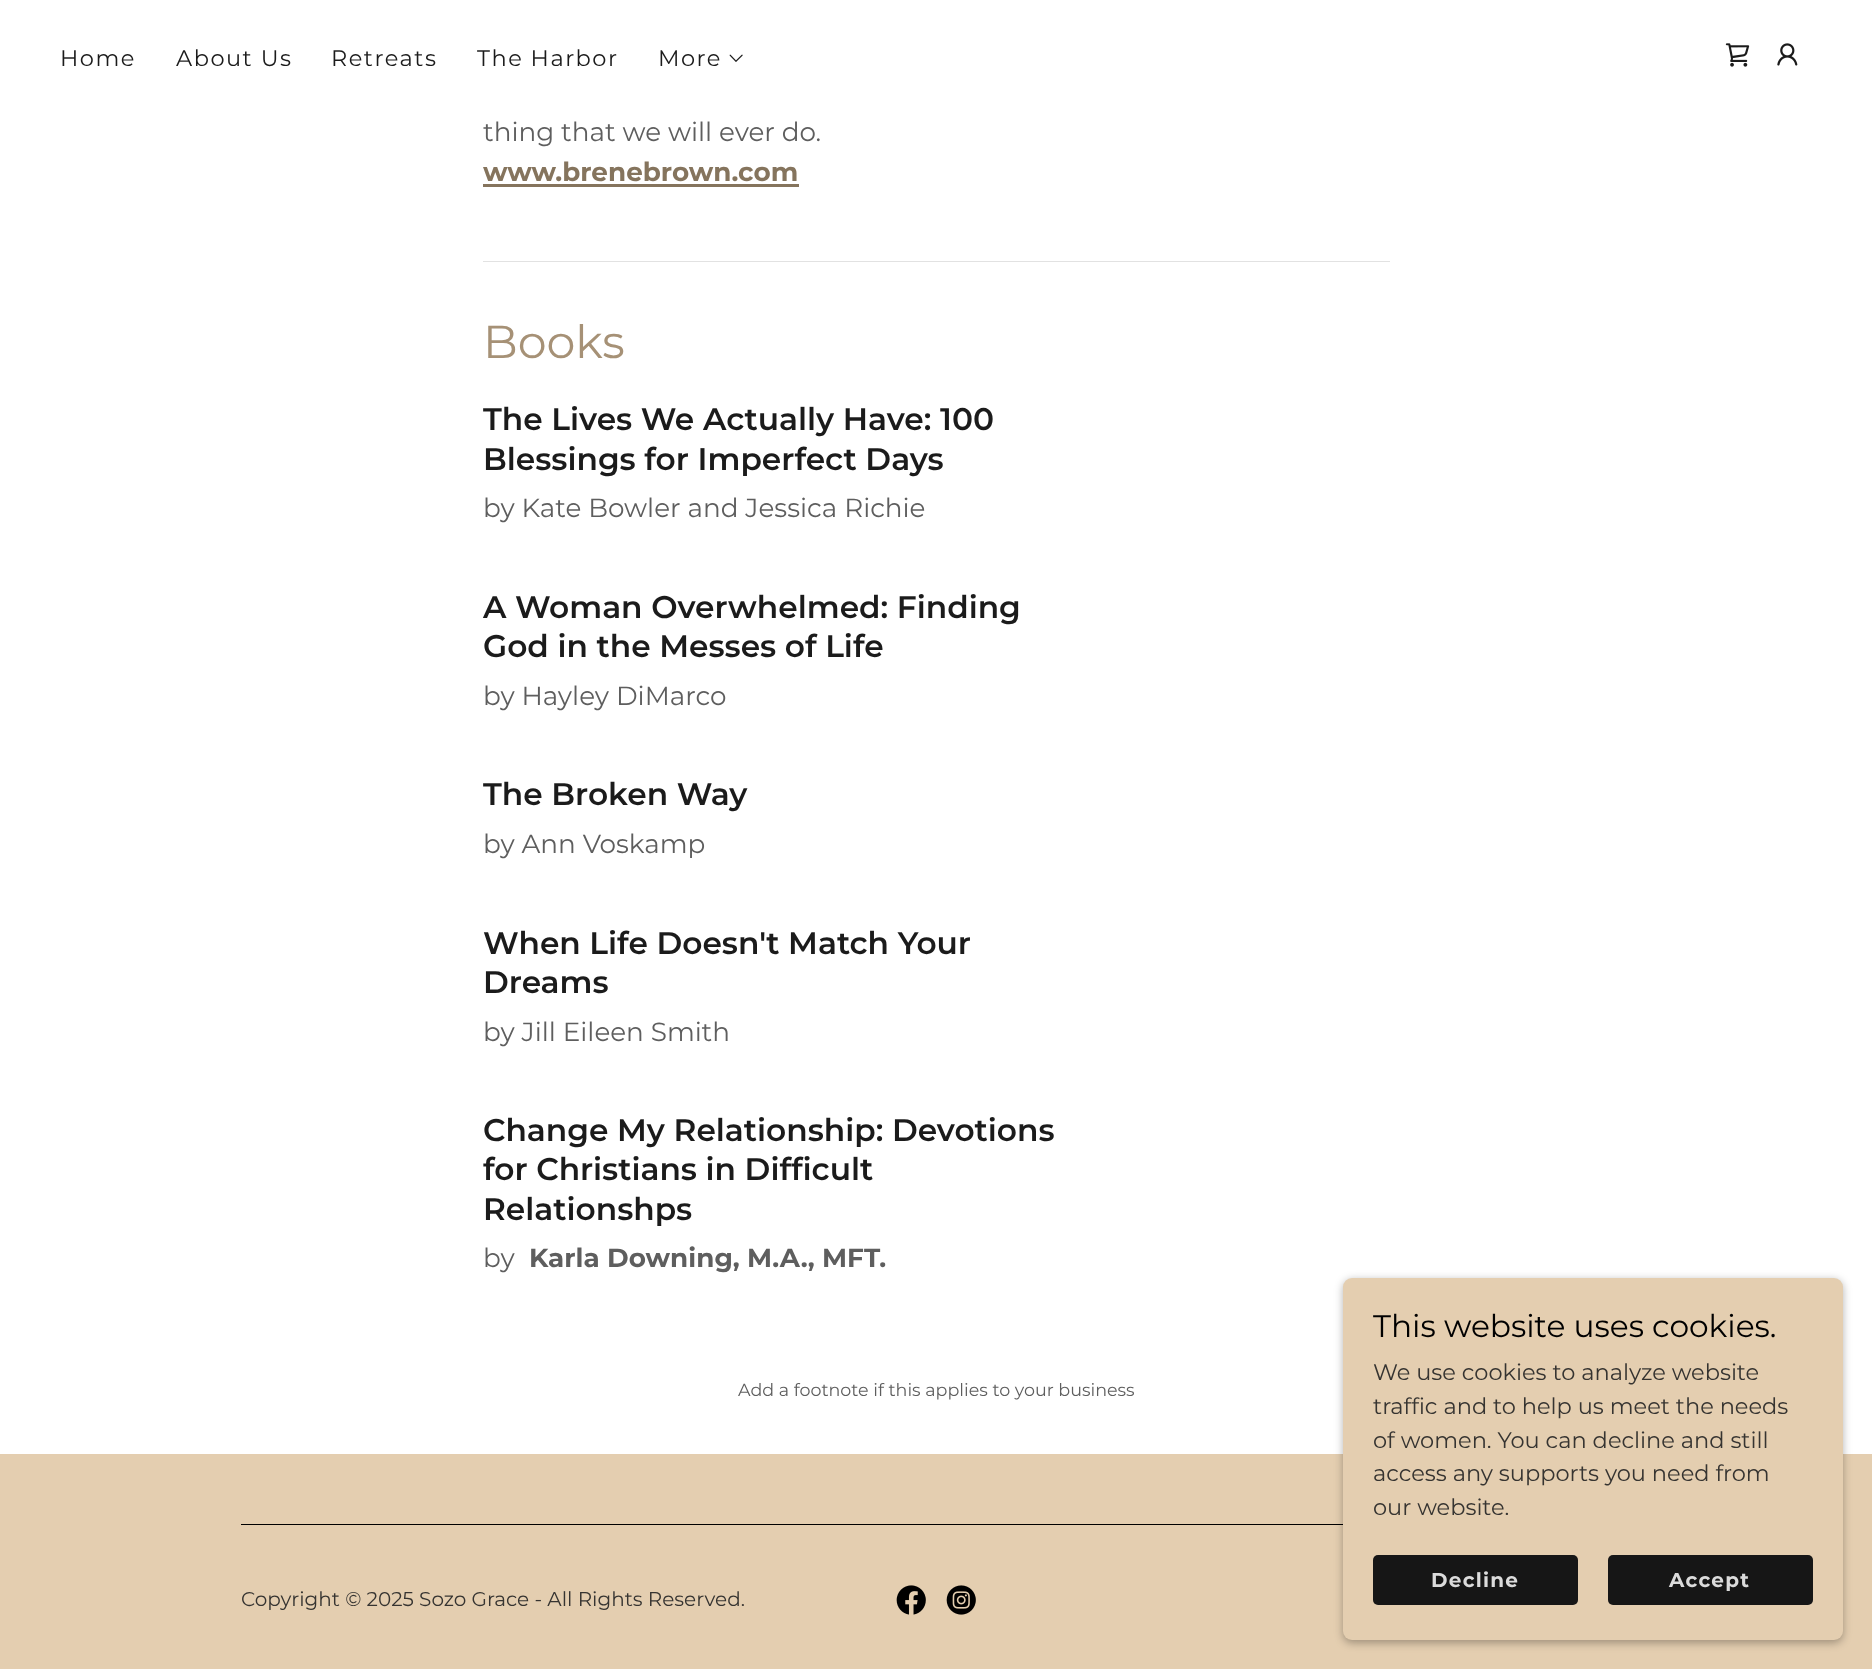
<!DOCTYPE html>
<meta charset="utf-8">
<style>body { margin: 0 } canvas { display: block }</style>
<canvas id="canvas" width="1872" height="1669"></canvas>
<script type="module">
  const canvas = document.getElementById("canvas");
  const ctx = canvas.getContext("2d");
  ctx.miterLimit = 4;
  ctx.fontKerning = "normal";
  async function loadImage(src) {
    const img = new Image();
    img.src = src;
    await img.decode();
    return img;
  }

  ctx.fillStyle = "#e4ceb0";
  ctx.fillRect(0, 0, 1872, 1669);
  ctx.fillStyle = "#ffffff";
  ctx.fillRect(0, 0, 1872, 1454);
  ctx.letterSpacing = "1.5px";
  ctx.font = "22.5px Montserrat";
  ctx.fillStyle = "#1b1b1b";
  ctx.fillText("Home", 60, 66);
  ctx.fillText("About Us", 176, 66);
  ctx.fillText("Retreats", 331, 66);
  ctx.fillText("The Harbor", 477, 66);
  ctx.fillText("More", 658, 66);
  ctx.drawImage(await loadImage("img1.png"), 729, 54, 14, 8);
  ctx.drawImage(await loadImage("img2.png"), 1725, 43, 25, 24);
  ctx.drawImage(await loadImage("img3.png"), 1777, 43, 21, 23);
  ctx.letterSpacing = "0px";
  ctx.font = "26.25px Montserrat";
  ctx.fillStyle = "#5e5e5e";
  ctx.fillText("thing that we will ever do.", 483, 141);
  ctx.font = "bold 26.25px Montserrat";
  ctx.fillStyle = "#85745d";
  ctx.fillText("www.brenebrown.com", 483, 181);
  ctx.fillRect(483, 184, 316, 3);
  ctx.fillStyle = "#e2e2e2";
  ctx.fillRect(483, 261, 907, 1);
  ctx.font = "46px Montserrat";
  ctx.fillStyle = "#a69176";
  ctx.fillText("Books", 483, 358);
  ctx.font = "600 31.25px Montserrat";
  ctx.fillStyle = "#1b1b1b";
  ctx.fillText("The Lives We Actually Have: 100", 483, 430);
  ctx.fillText("Blessings for Imperfect Days", 483, 470);
  ctx.font = "26.25px Montserrat";
  ctx.fillStyle = "#5e5e5e";
  ctx.fillText("by Kate Bowler and Jessica Richie", 483, 517);
  ctx.font = "600 31.25px Montserrat";
  ctx.fillStyle = "#1b1b1b";
  ctx.fillText("A Woman Overwhelmed: Finding", 483, 618);
  ctx.fillText("God in the Messes of Life", 483, 657);
  ctx.font = "26.25px Montserrat";
  ctx.fillStyle = "#5e5e5e";
  ctx.fillText("by Hayley DiMarco", 483, 705);
  ctx.font = "600 31.25px Montserrat";
  ctx.fillStyle = "#1b1b1b";
  ctx.fillText("The Broken Way", 483, 805);
  ctx.font = "26.25px Montserrat";
  ctx.fillStyle = "#5e5e5e";
  ctx.fillText("by Ann Voskamp", 483, 853);
  ctx.font = "600 31.25px Montserrat";
  ctx.fillStyle = "#1b1b1b";
  ctx.fillText("When Life Doesn't Match Your", 483, 954);
  ctx.fillText("Dreams", 483, 993);
  ctx.font = "26.25px Montserrat";
  ctx.fillStyle = "#5e5e5e";
  ctx.fillText("by Jill Eileen Smith", 483, 1041);
  ctx.font = "600 31.25px Montserrat";
  ctx.fillStyle = "#1b1b1b";
  ctx.fillText("Change My Relationship: Devotions", 483, 1141);
  ctx.fillText("for Christians in Difficult", 483, 1180);
  ctx.fillText("Relationshps", 483, 1220);
  ctx.font = "26.25px Montserrat";
  ctx.fillStyle = "#5e5e5e";
  ctx.fillText("by", 483, 1267);
  ctx.font = "bold 26.25px Montserrat";
  ctx.fillText("Karla Downing, M.A., MFT.", 529, 1267);
  ctx.font = "17.5px Montserrat";
  ctx.fillText("Add a footnote if this applies to your business", 738, 1396);
  ctx.fillStyle = "#000000";
  ctx.fillRect(241, 1524, 1102, 1);
  ctx.fillStyle = "rgba(0, 0, 0, 0.3)";
  ctx.filter = "blur(4px)";
  ctx.beginPath();
  ctx.roundRect(1343, 1280, 500, 363, 9);
  ctx.fill();
  ctx.filter = "none";
  ctx.fillStyle = "#e4ceb0";
  ctx.beginPath();
  ctx.roundRect(1343, 1278, 500, 362, 9);
  ctx.fill();
  ctx.font = "31.25px Montserrat";
  ctx.fillStyle = "#000000";
  ctx.fillText("This website uses cookies.", 1373, 1337);
  ctx.font = "22.5px Montserrat";
  ctx.fillStyle = "#363431";
  ctx.fillText("We use cookies to analyze website", 1373, 1380);
  ctx.fillText("traffic and to help us meet the needs", 1373, 1414);
  ctx.fillText("of women. You can decline and still", 1373, 1448);
  ctx.fillText("access any supports you need from", 1373, 1481);
  ctx.fillText("our website.", 1373, 1515);
  ctx.fillStyle = "#161616";
  ctx.beginPath();
  ctx.roundRect(1373, 1555, 205, 50, 5);
  ctx.fill();
  ctx.letterSpacing = "1.25px";
  ctx.font = "bold 20px Montserrat";
  ctx.fillStyle = "#dbdbdb";
  ctx.fillText("Decline", 1431, 1587);
  ctx.fillStyle = "#161616";
  ctx.beginPath();
  ctx.roundRect(1608, 1555, 205, 50, 5);
  ctx.fill();
  ctx.fillStyle = "#dbdbdb";
  ctx.fillText("Accept", 1669, 1587);
  ctx.letterSpacing = "0px";
  ctx.font = "20px Montserrat";
  ctx.fillStyle = "#363431";
  ctx.fillText("Copyright © 2025 Sozo Grace - All Rights Reserved.", 241, 1606);
  ctx.drawImage(await loadImage("img4.png"), 896, 1585, 30, 30);
  ctx.drawImage(await loadImage("img5.png"), 946, 1585, 30, 30);
</script>
